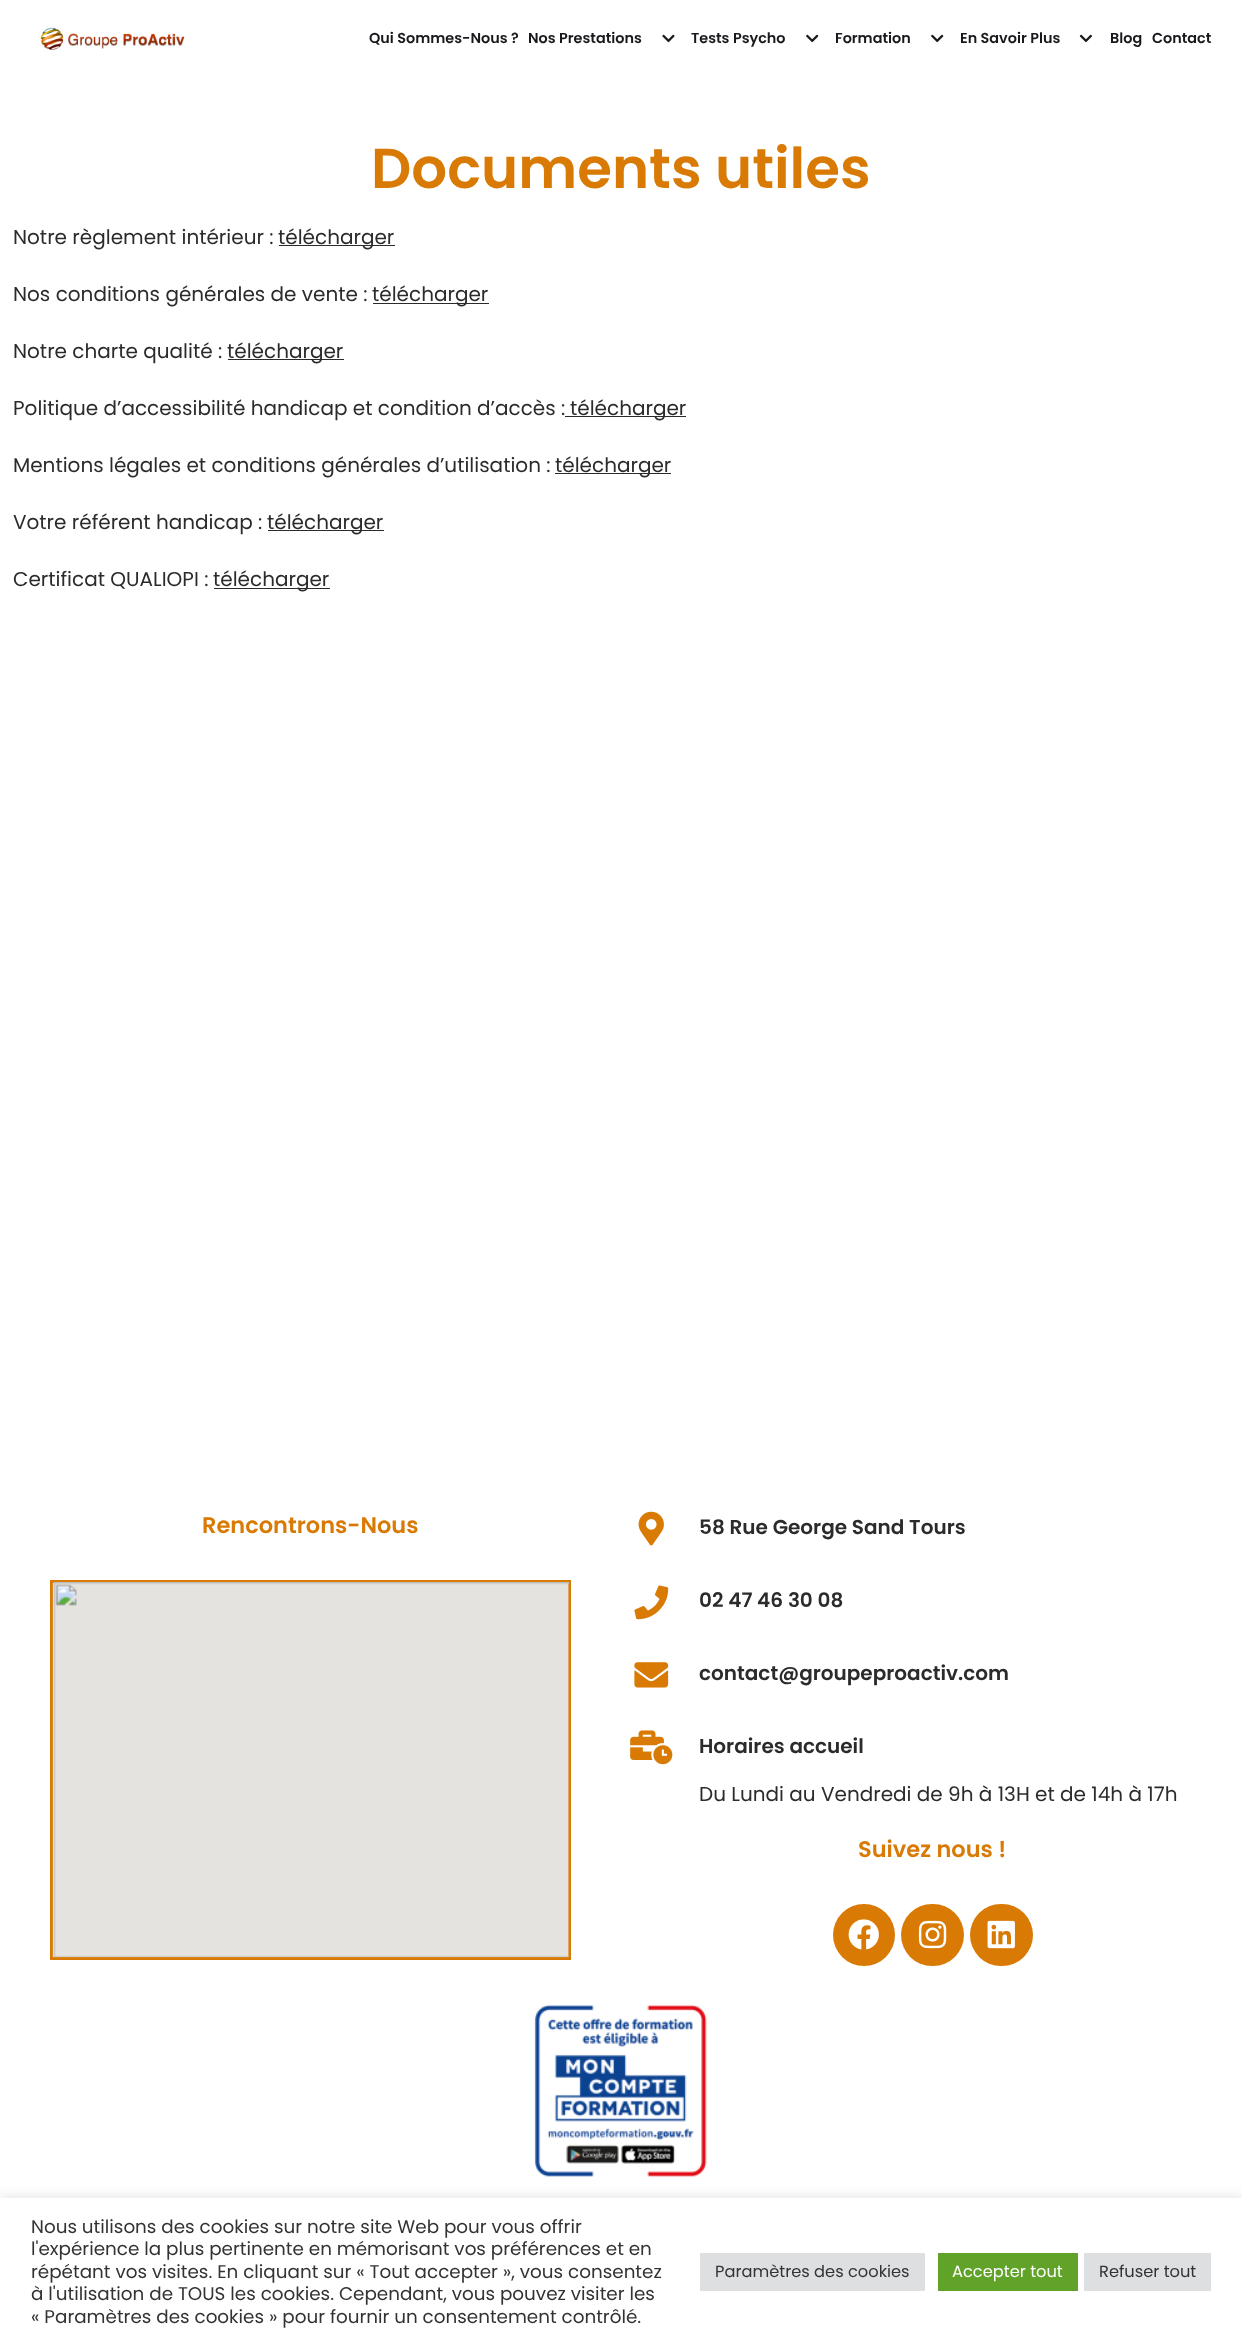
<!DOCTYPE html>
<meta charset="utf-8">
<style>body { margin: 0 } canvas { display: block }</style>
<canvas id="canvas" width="1242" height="2344"></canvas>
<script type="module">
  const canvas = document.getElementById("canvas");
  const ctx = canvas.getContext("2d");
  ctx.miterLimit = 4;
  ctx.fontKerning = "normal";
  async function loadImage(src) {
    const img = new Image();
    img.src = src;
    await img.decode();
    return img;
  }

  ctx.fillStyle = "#ffffff";
  ctx.fillRect(0, 0, 1242, 2344);
  ctx.drawImage(await loadImage("img1.png"), 40, 27, 145, 23);
  ctx.font = "600 14.4px Poppins";
  ctx.fillStyle = "#18191d";
  ctx.fillText("Qui Sommes-Nous ?", 369, 43);
  ctx.fillText("Nos Prestations", 528, 43);
  ctx.drawImage(await loadImage("img2.png"), 662, 34, 13, 9);
  ctx.fillText("Tests Psycho", 691, 43);
  ctx.drawImage(await loadImage("img3.png"), 806, 34, 13, 9);
  ctx.fillText("Formation", 835, 43);
  ctx.drawImage(await loadImage("img3.png"), 931, 34, 13, 9);
  ctx.fillText("En Savoir Plus", 960, 43);
  ctx.drawImage(await loadImage("img4.png"), 1079, 34, 13, 9);
  ctx.fillText("Blog", 1110, 43);
  ctx.fillText("Contact", 1152, 43);
  ctx.font = "600 56.25px Poppins";
  ctx.fillStyle = "#d97a05";
  ctx.fillText("Documents utiles", 371, 188);
  ctx.font = "20px Poppins";
  ctx.fillStyle = "#2b2b2b";
  ctx.fillText("Notre règlement intérieur :", 13, 244);
  ctx.fillRect(279, 245, 116, 1);
  ctx.fillText("télécharger", 278, 244);
  ctx.fillText("Nos conditions générales de vente :", 13, 301);
  ctx.fillRect(373, 303, 116, 1);
  ctx.fillText("télécharger", 372, 301);
  ctx.fillText("Notre charte qualité :", 13, 358);
  ctx.fillRect(228, 359, 116, 1);
  ctx.fillText("télécharger", 227, 358);
  ctx.fillText("Politique d’accessibilité handicap et condition d’accès :", 13, 415);
  ctx.fillRect(565, 416, 121, 1);
  ctx.fillText("télécharger", 570, 415);
  ctx.fillText("Mentions légales et conditions générales d’utilisation :", 13, 472);
  ctx.fillRect(555, 473, 116, 1);
  ctx.fillText("télécharger", 555, 472);
  ctx.fillText("Votre référent handicap :", 13, 529);
  ctx.fillRect(268, 530, 116, 1);
  ctx.fillText("télécharger", 267, 529);
  ctx.fillText("Certificat QUALIOPI :", 13, 586);
  ctx.fillRect(214, 588, 116, 1);
  ctx.fillText("télécharger", 213, 586);
  ctx.font = "600 22.5px Poppins";
  ctx.fillStyle = "#d97a05";
  ctx.fillText("Rencontrons-Nous", 202, 1533);
  ctx.strokeStyle = "#d97a05";
  ctx.lineWidth = 3;
  ctx.strokeRect(51.5, 1581.5, 518, 377);
  ctx.drawImage(await loadImage("img5.png"), 52, 1582, 517, 376);
  ctx.drawImage(await loadImage("img6.png"), 638, 1511, 26, 35);
  ctx.font = "600 20px Poppins";
  ctx.fillStyle = "#2b2b2b";
  ctx.fillText("58 Rue George Sand Tours", 699, 1534);
  ctx.drawImage(await loadImage("img7.png"), 634, 1585, 35, 35);
  ctx.fillText("02 47 46 30 08", 699, 1607);
  ctx.drawImage(await loadImage("img8.png"), 634, 1662, 35, 26);
  ctx.fillText("contact@groupeproactiv.com", 699, 1680);
  ctx.drawImage(await loadImage("img9.png"), 630, 1730, 43, 35);
  ctx.fillText("Horaires accueil", 699, 1753);
  ctx.font = "20px Poppins";
  ctx.fillText("Du Lundi au Vendredi de 9h à 13H et de 14h à 17h", 699, 1801);
  ctx.font = "600 22.5px Poppins";
  ctx.fillStyle = "#d97a05";
  ctx.fillText("Suivez nous !", 858, 1857);
  ctx.beginPath();
  ctx.arc(864, 1935, 31, 0, Math.PI * 2);
  ctx.fill();
  ctx.drawImage(await loadImage("img10.png"), 848, 1919, 31, 31);
  ctx.beginPath();
  ctx.roundRect(901, 1904, 63, 62, 31);
  ctx.fill();
  ctx.drawImage(await loadImage("img11.png"), 918, 1920, 29, 29);
  ctx.beginPath();
  ctx.roundRect(970, 1904, 63, 62, 31);
  ctx.fill();
  ctx.drawImage(await loadImage("img12.png"), 987, 1920, 28, 29);
  ctx.drawImage(await loadImage("img13.png"), 534, 2004, 173, 173);
  ctx.fillStyle = "rgba(172, 171, 171, 0.3)";
  ctx.filter = "blur(6px)";
  ctx.beginPath();
  ctx.rect(0, 2196, 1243, 148);
  ctx.fill();
  ctx.filter = "none";
  ctx.fillStyle = "#ffffff";
  ctx.fillRect(0, 2198, 1242, 146);
  ctx.font = "18.35px Poppins";
  ctx.fillStyle = "#333333";
  ctx.fillText("Nous utilisons des cookies sur notre site Web pour vous offrir", 31, 2233);
  ctx.fillText("l'expérience la plus pertinente en mémorisant vos préférences et en", 31, 2255);
  ctx.fillText("répétant vos visites. En cliquant sur « Tout accepter », vous consentez", 31, 2278);
  ctx.fillText("à l'utilisation de TOUS les cookies. Cependant, vous pouvez visiter les", 31, 2300);
  ctx.fillText("« Paramètres des cookies » pour fournir un consentement contrôlé.", 31, 2323);
  ctx.fillStyle = "#dedfe0";
  ctx.fillRect(700, 2253, 225, 38);
  ctx.font = "16.25px Poppins";
  ctx.fillStyle = "#333333";
  ctx.fillText("Paramètres des cookies", 715, 2277);
  ctx.fillStyle = "#61a229";
  ctx.fillRect(938, 2253, 140, 38);
  ctx.fillStyle = "#ffffff";
  ctx.fillText("Accepter tout", 952, 2277);
  ctx.fillStyle = "#dedfe0";
  ctx.fillRect(1084, 2253, 127, 38);
  ctx.fillStyle = "#333333";
  ctx.fillText("Refuser tout", 1099, 2277);
</script>
